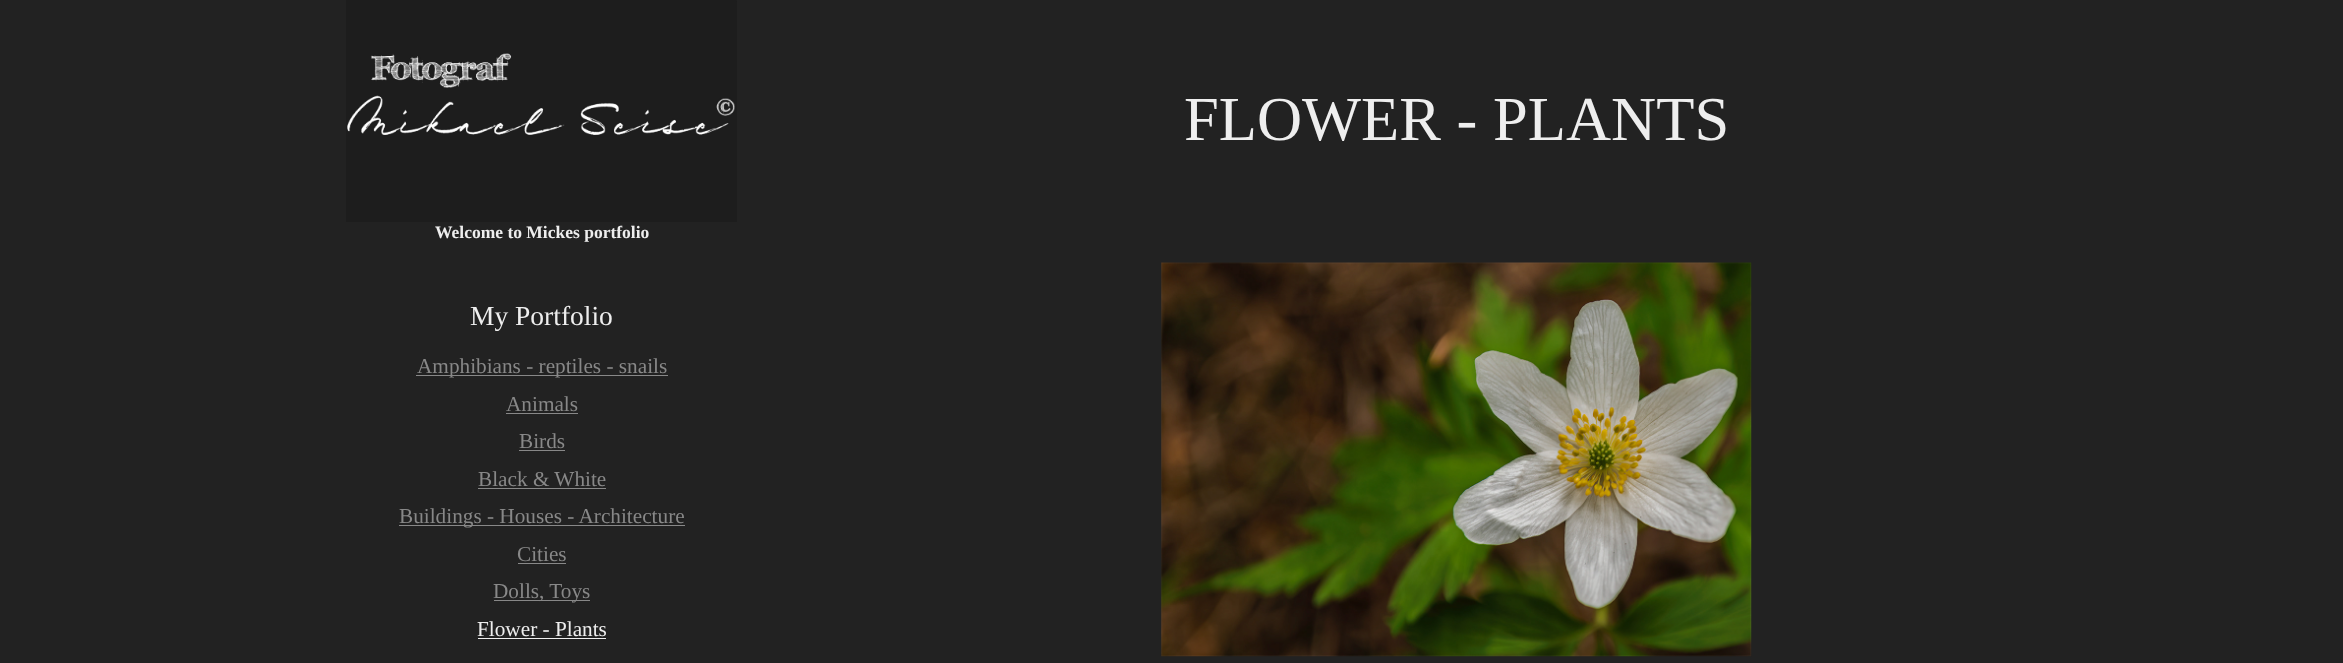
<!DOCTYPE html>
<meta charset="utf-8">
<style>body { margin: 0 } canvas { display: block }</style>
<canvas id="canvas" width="2343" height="663"></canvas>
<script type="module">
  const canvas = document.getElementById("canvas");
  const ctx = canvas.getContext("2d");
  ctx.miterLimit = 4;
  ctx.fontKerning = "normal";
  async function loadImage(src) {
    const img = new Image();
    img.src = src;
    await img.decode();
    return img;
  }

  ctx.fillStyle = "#222222";
  ctx.fillRect(0, 0, 2343, 663);
  ctx.font = "62.5px Liberation Serif";
  ctx.fillStyle = "#eeeeee";
  ctx.fillText("FLOWER - PLANTS", 1184, 140);
  ctx.drawImage(await loadImage("img1.png"), 1161, 262, 591, 395);
  ctx.drawImage(await loadImage("img2.png"), 346, 0, 391, 222);
  ctx.font = "bold 17.5px Liberation Serif";
  ctx.fillText("Welcome to Mickes portfolio", 435, 238);
  ctx.font = "27.5px Liberation Serif";
  ctx.fillText("My Portfolio", 470, 325);
  ctx.fillStyle = "#888888";
  ctx.fillRect(416, 375, 252, 1);
  ctx.font = "21.25px Liberation Serif";
  ctx.fillText("Amphibians - reptiles - snails", 417, 373);
  ctx.fillText("Animals", 506, 411);
  ctx.fillRect(506, 413, 72, 1);
  ctx.fillText("Birds", 519, 448);
  ctx.fillRect(519, 450, 46, 1);
  ctx.fillText("Black & White", 478, 486);
  ctx.fillRect(478, 488, 128, 1);
  ctx.fillRect(399, 525, 286, 1);
  ctx.fillText("Buildings - Houses - Architecture", 399, 523);
  ctx.fillText("Cities", 517, 561);
  ctx.fillRect(518, 563, 48, 1);
  ctx.fillRect(494, 600, 96, 1);
  ctx.fillText("Dolls, Toys", 493, 598);
  ctx.fillStyle = "#eeeeee";
  ctx.fillText("Flower - Plants", 477, 636);
  ctx.fillRect(478, 638, 128, 1);
</script>
